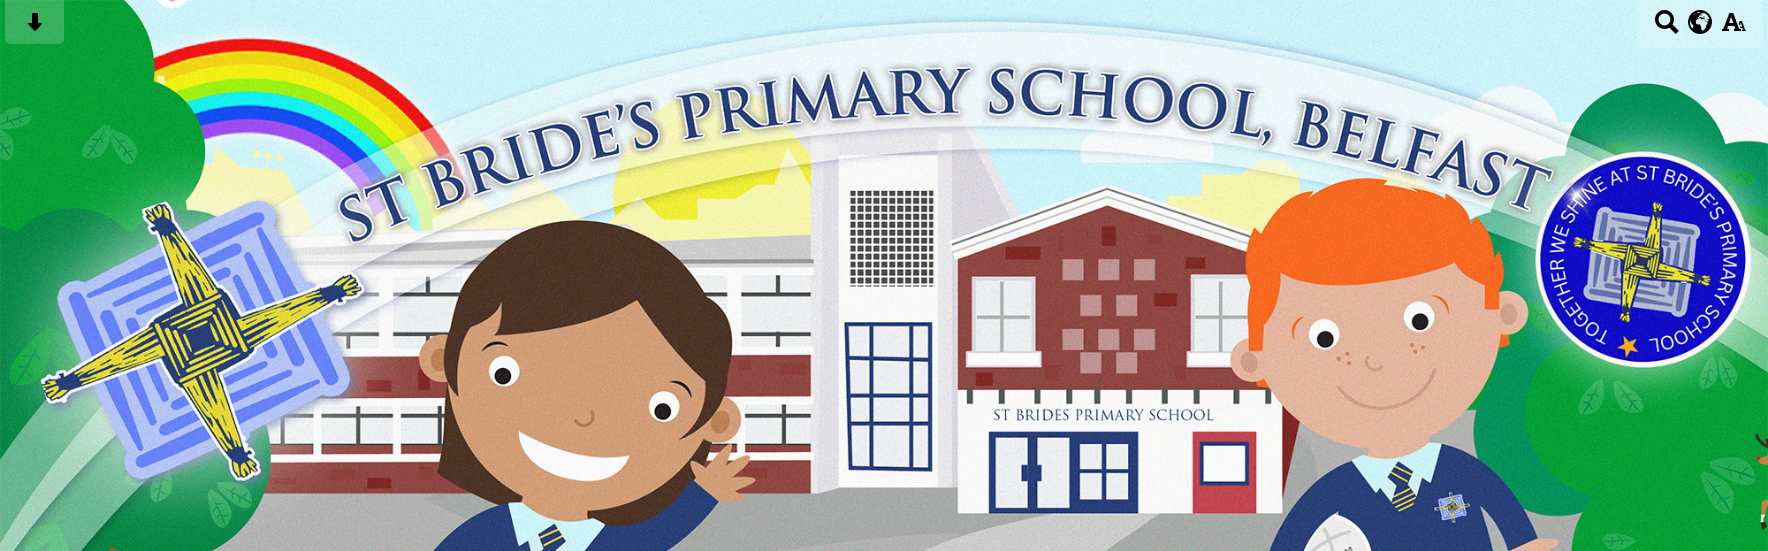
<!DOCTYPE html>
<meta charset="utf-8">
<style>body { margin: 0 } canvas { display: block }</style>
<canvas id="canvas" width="1768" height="551"></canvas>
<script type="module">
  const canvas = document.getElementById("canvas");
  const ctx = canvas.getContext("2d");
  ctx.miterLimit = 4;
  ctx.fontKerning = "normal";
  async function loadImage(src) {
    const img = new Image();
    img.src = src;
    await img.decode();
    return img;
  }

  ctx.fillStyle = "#ffffff";
  ctx.fillRect(0, 0, 1768, 551);
  ctx.drawImage(await loadImage("img1.png"), 0, 0, 1768, 551);
  ctx.fillStyle = "rgba(255, 255, 255, 0.2)";
  ctx.beginPath();
  ctx.roundRect(5, 0, 59, 44, [0, 0, 5, 5]);
  ctx.fill();
  ctx.drawImage(await loadImage("img2.png"), 28, 13, 14, 18);
  ctx.beginPath();
  ctx.roundRect(1637, 0, 126, 48, [0, 0, 5, 5]);
  ctx.fill();
  ctx.drawImage(await loadImage("img3.png"), 1655, 10, 24, 24);
  ctx.drawImage(await loadImage("img4.png"), 1688, 10, 24, 24);
  ctx.drawImage(await loadImage("img5.png"), 1722, 13, 24, 18);
  ctx.drawImage(await loadImage("img6.png"), 156, 0, 32, 9);
  ctx.drawImage(await loadImage("img7.png"), 1753, 433, 15, 98);
</script>
